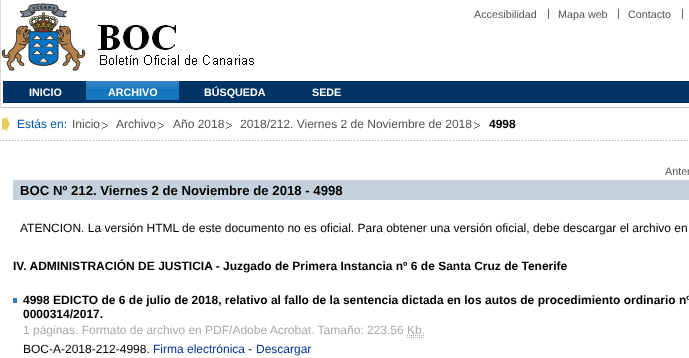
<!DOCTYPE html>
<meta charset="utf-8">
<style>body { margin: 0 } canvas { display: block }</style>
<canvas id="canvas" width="689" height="358"></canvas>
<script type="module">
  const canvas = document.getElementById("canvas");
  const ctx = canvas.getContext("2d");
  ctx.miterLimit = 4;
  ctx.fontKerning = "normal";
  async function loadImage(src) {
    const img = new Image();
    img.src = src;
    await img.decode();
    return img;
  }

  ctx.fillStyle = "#ffffff";
  ctx.fillRect(0, 0, 689, 358);
  ctx.drawImage(await loadImage("img1.png"), 1, 107, 688, 1);
  ctx.fillStyle = "#d7dddb";
  ctx.fillRect(0, 0, 1, 108);
  ctx.drawImage(await loadImage("img2.png"), 1, 3, 85, 68);
  ctx.font = "10.75px Liberation Sans";
  ctx.fillStyle = "#535353";
  ctx.fillText("Accesibilidad", 474, 18);
  ctx.drawImage(await loadImage("img3.png"), 548, 8, 1, 11);
  ctx.fillText("Mapa web", 558, 18);
  ctx.drawImage(await loadImage("img3.png"), 618, 8, 1, 11);
  ctx.fillText("Contacto", 628, 18);
  ctx.drawImage(await loadImage("img3.png"), 682, 8, 1, 11);
  ctx.drawImage(await loadImage("img4.png"), 98, 25, 156, 40);
  ctx.fillStyle = "#003366";
  ctx.fillRect(3, 81, 686, 22);
  ctx.font = "bold 10.75px Liberation Sans";
  ctx.fillStyle = "#ffffff";
  ctx.fillText("INICIO", 29, 96);
  ctx.drawImage(await loadImage("img5.png"), 86, 81, 93, 19);
  ctx.fillText("ARCHIVO", 108, 96);
  ctx.fillText("BÚSQUEDA", 204, 96);
  ctx.fillText("SEDE", 312, 96);
  ctx.drawImage(await loadImage("img6.png"), 0, 140, 688, 1);
  ctx.drawImage(await loadImage("img7.png"), 2, 116, 8, 16);
  ctx.font = "12px Liberation Sans";
  ctx.fillStyle = "#0058b0";
  ctx.fillText("Estás en:", 17, 128);
  ctx.fillStyle = "#535353";
  ctx.fillText("Inicio", 72, 128);
  ctx.drawImage(await loadImage("img8.png"), 102, 122, 6, 7);
  ctx.fillText("Archivo", 116, 128);
  ctx.drawImage(await loadImage("img8.png"), 158, 122, 6, 7);
  ctx.fillText("Año 2018", 173, 128);
  ctx.drawImage(await loadImage("img8.png"), 226, 122, 6, 7);
  ctx.fillText("2018/212. Viernes 2 de Noviembre de 2018", 240, 128);
  ctx.drawImage(await loadImage("img8.png"), 474, 122, 6, 7);
  ctx.font = "bold 12px Liberation Sans";
  ctx.fillStyle = "#000000";
  ctx.fillText("4998", 489, 128);
  ctx.font = "10.75px Liberation Sans";
  ctx.fillStyle = "#535353";
  ctx.fillText("Anter", 665, 175);
  ctx.fillStyle = "#c4d0dc";
  ctx.fillRect(13, 180, 676, 20);
  ctx.font = "bold 13.2px Liberation Sans";
  ctx.fillStyle = "#000000";
  ctx.fillText("BOC Nº 212. Viernes 2 de Noviembre de 2018 - 4998", 20, 195);
  ctx.font = "12px Liberation Sans";
  ctx.fillText("ATENCION. La versión HTML de este documento no es oficial. Para obtener una versión oficial, debe descargar el archivo en", 20, 232);
  ctx.font = "bold 12px Liberation Sans";
  ctx.fillText("IV. ADMINISTRACIÓN DE JUSTICIA - Juzgado de Primera Instancia nº 6 de Santa Cruz de Tenerife", 13, 270);
  ctx.fillStyle = "#3a7bbe";
  ctx.fillRect(13, 298, 4, 5);
  ctx.fillStyle = "#000000";
  ctx.fillText("4998 EDICTO de 6 de julio de 2018, relativo al fallo de la sentencia dictada en los autos de procedimiento ordinario nº", 23, 304);
  ctx.fillText("0000314/2017.", 23, 318);
  ctx.font = "12px Liberation Sans";
  ctx.fillStyle = "#aaaaaa";
  ctx.fillText("1 páginas. Formato de archivo en PDF/Adobe Acrobat. Tamaño: 223.56 Kb.", 23, 334);
  ctx.beginPath();
  ctx.moveTo(407, 337.5);
  ctx.lineTo(425, 337.5);
  ctx.moveTo(407, 335.5);
  ctx.lineTo(425, 335.5);
  ctx.strokeStyle = "#aaaaaa";
  ctx.setLineDash([1, 1]);
  ctx.stroke();
  ctx.fillStyle = "#000000";
  ctx.fillText("BOC-A-2018-212-4998.", 23, 353);
  ctx.fillStyle = "#003399";
  ctx.fillText("Firma electrónica", 153, 353);
  ctx.fillStyle = "#000000";
  ctx.fillText("-", 248, 353);
  ctx.fillStyle = "#003399";
  ctx.fillText("Descargar", 256, 353);
</script>
